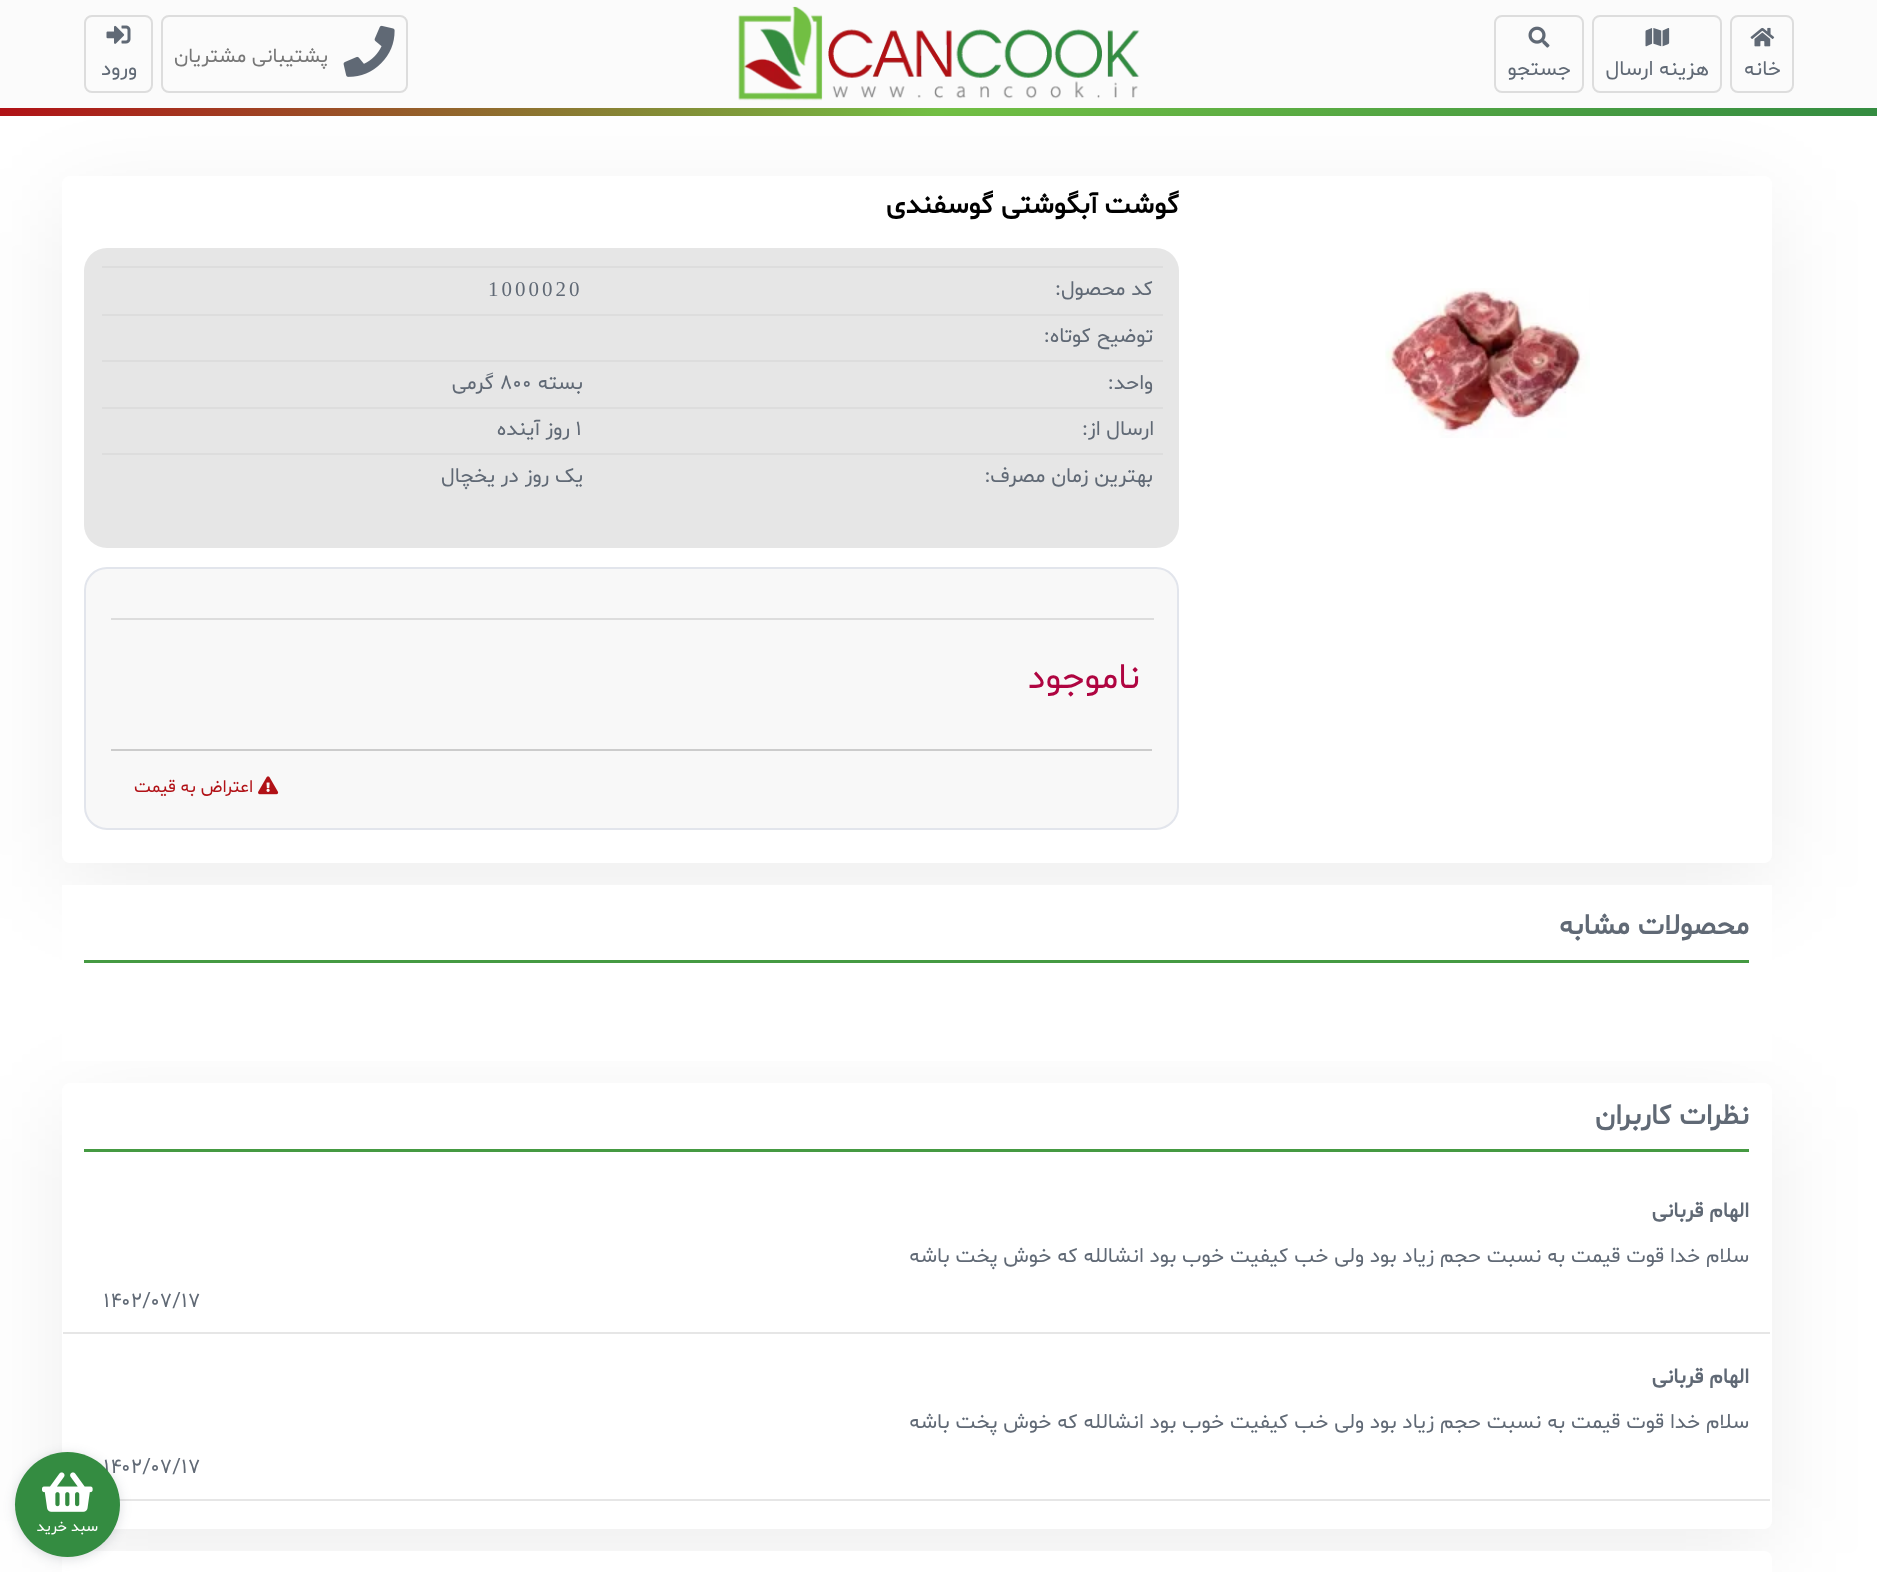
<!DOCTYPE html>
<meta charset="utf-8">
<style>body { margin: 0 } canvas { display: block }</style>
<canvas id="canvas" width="1877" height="1572"></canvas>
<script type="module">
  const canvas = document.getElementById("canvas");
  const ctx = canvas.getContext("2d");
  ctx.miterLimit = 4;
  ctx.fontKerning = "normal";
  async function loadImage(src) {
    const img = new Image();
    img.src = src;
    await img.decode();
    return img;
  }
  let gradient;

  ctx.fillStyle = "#ffffff";
  ctx.fillRect(0, 0, 1877, 1572);
  ctx.fillStyle = "#fbfbfb";
  ctx.fillRect(0, 0, 1877, 108);
  gradient = ctx.createLinearGradient(565, -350, 1313, 573);
  gradient.addColorStop(0, "#b11116");
  gradient.addColorStop(0.5, "#72bf44");
  gradient.addColorStop(1, "#348c41");
  ctx.fillStyle = gradient;
  ctx.fillRect(0, 108, 1877, 8);
  ctx.fillStyle = "rgba(0, 0, 0, 0.07)";
  ctx.filter = "blur(48px)";
  ctx.beginPath();
  ctx.roundRect(62, 200, 1710, 687, 8);
  ctx.fill();
  ctx.filter = "none";
  ctx.beginPath();
  ctx.roundRect(1731, 16, 62, 76, 7);
  ctx.strokeStyle = "#dddddd";
  ctx.lineWidth = 2;
  ctx.stroke();
  ctx.drawImage(await loadImage("img1.png"), 1750, 27, 25, 20);
  ctx.direction = "rtl";
  ctx.font = "21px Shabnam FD";
  ctx.fillStyle = "#606975";
  ctx.fillText("خانه", 1781, 75);
  ctx.beginPath();
  ctx.roundRect(1593, 16, 128, 76, 7);
  ctx.stroke();
  ctx.drawImage(await loadImage("img2.png"), 1645, 28, 25, 19);
  ctx.fillText("هزینه ارسال", 1709, 75);
  ctx.beginPath();
  ctx.roundRect(1495, 16, 88, 76, 7);
  ctx.stroke();
  ctx.drawImage(await loadImage("img3.png"), 1528, 26, 22, 22);
  ctx.fillText("جستجو", 1571, 75);
  ctx.drawImage(await loadImage("img4.png"), 738, 6, 402, 95);
  ctx.beginPath();
  ctx.roundRect(162, 16, 245, 76, 7);
  ctx.stroke();
  ctx.drawImage(await loadImage("img5.png"), 343, 25, 52, 52);
  ctx.font = "20.25px Shabnam FD";
  ctx.fillStyle = "#777777";
  ctx.fillText("پشتیبانی مشتریان", 328, 62);
  ctx.beginPath();
  ctx.roundRect(85, 16, 67, 76, 7);
  ctx.stroke();
  ctx.drawImage(await loadImage("img6.png"), 106, 25, 25, 19);
  ctx.font = "21px Shabnam FD";
  ctx.fillStyle = "#606975";
  ctx.fillText("ورود", 137, 75);
  ctx.fillStyle = "#ffffff";
  ctx.beginPath();
  ctx.roundRect(62, 176, 1710, 687, 8);
  ctx.fill();
  ctx.drawImage(await loadImage("img7.png"), 1385, 288, 205, 150);
  ctx.font = "bold 27.5px Shabnam FD";
  ctx.fillStyle = "#000000";
  ctx.fillText("گوشت آبگوشتی گوسفندی", 1179, 213);
  ctx.fillStyle = "#e6e6e6";
  ctx.beginPath();
  ctx.roundRect(84, 248, 1095, 300, 23);
  ctx.fill();
  ctx.font = "21px Shabnam FD";
  ctx.fillStyle = "#606975";
  ctx.fillText("کد محصول:", 1153, 295);
  ctx.fillStyle = "#dddddd";
  ctx.fillRect(102, 266, 1061, 2);
  ctx.letterSpacing = "3px";
  ctx.direction = "ltr";
  ctx.font = "21px Liberation Serif";
  ctx.fillStyle = "#606975";
  ctx.fillText("1000020", 488, 296);
  ctx.fillStyle = "#dddddd";
  ctx.fillRect(102, 314, 1061, 2);
  ctx.letterSpacing = "0px";
  ctx.direction = "rtl";
  ctx.font = "21px Shabnam FD";
  ctx.fillStyle = "#606975";
  ctx.fillText("توضیح کوتاه:", 1153, 342);
  ctx.fillText("واحد:", 1153, 389);
  ctx.fillStyle = "#dddddd";
  ctx.fillRect(102, 360, 1061, 2);
  ctx.fillStyle = "#606975";
  ctx.fillText("بسته", 583, 389);
  ctx.direction = "ltr";
  ctx.fillText("800", 500, 389);
  ctx.direction = "rtl";
  ctx.fillText("گرمی", 494, 389);
  ctx.fillText("ارسال از:", 1154, 435);
  ctx.fillStyle = "#dddddd";
  ctx.fillRect(102, 407, 1061, 2);
  ctx.direction = "ltr";
  ctx.fillStyle = "#606975";
  ctx.fillText("1", 575, 435);
  ctx.direction = "rtl";
  ctx.fillText("روز آینده", 570, 435);
  ctx.fillText("بهترین زمان مصرف:", 1153, 482);
  ctx.fillStyle = "#dddddd";
  ctx.fillRect(102, 453, 1061, 2);
  ctx.fillStyle = "#606975";
  ctx.fillText("یک روز در یخچال", 583, 482);
  ctx.fillStyle = "#f8f8f8";
  ctx.beginPath();
  ctx.roundRect(85, 568, 1093, 261, 22);
  ctx.fill();
  ctx.strokeStyle = "#e2e5ec";
  ctx.stroke();
  ctx.fillStyle = "#dddddd";
  ctx.fillRect(111, 618, 1043, 2);
  ctx.font = "36px Shabnam FD";
  ctx.fillStyle = "#af0541";
  ctx.fillText("ناموجود", 1140, 688);
  ctx.fillStyle = "#cccccc";
  ctx.fillRect(111, 749, 1041, 2);
  ctx.drawImage(await loadImage("img8.png"), 258, 776, 21, 19);
  ctx.font = "17.75px Shabnam FD";
  ctx.fillStyle = "#b11116";
  ctx.fillText("اعتراض به قیمت", 253, 792);
  ctx.fillStyle = "rgba(0, 0, 0, 0.07)";
  ctx.filter = "blur(48px)";
  ctx.beginPath();
  ctx.roundRect(62, 1107, 1710, 446, 8);
  ctx.fill();
  ctx.filter = "none";
  ctx.fillStyle = "#ffffff";
  ctx.fillRect(62, 885, 1710, 176);
  ctx.fillStyle = "#459a42";
  ctx.fillRect(84, 960, 1665, 3);
  ctx.font = "bold 28.5px Shabnam FD";
  ctx.fillStyle = "#606975";
  ctx.fillText("محصولات مشابه", 1749, 934);
  ctx.fillStyle = "#ffffff";
  ctx.beginPath();
  ctx.roundRect(62, 1083, 1710, 446, 8);
  ctx.fill();
  ctx.fillStyle = "#459a42";
  ctx.fillRect(84, 1149, 1665, 3);
  ctx.fillStyle = "#606975";
  ctx.fillText("نظرات کاربران", 1749, 1124);
  ctx.fillStyle = "#e6e6e6";
  ctx.fillRect(63, 1332, 1707, 2);
  ctx.font = "bold 21px Shabnam FD";
  ctx.fillStyle = "#606975";
  ctx.fillText("الهام قربانی", 1749, 1217);
  ctx.font = "21px Shabnam FD";
  ctx.fillText("سلام خدا قوت قیمت به نسبت حجم زیاد بود ولی خب کیفیت خوب بود انشالله که خوش پخت باشه", 1749, 1262);
  ctx.direction = "ltr";
  ctx.fillText("۱۴۰۲/۰۷/۱۷", 103, 1307);
  ctx.fillStyle = "#e6e6e6";
  ctx.fillRect(119, 1499, 1651, 2);
  ctx.direction = "rtl";
  ctx.font = "bold 21px Shabnam FD";
  ctx.fillStyle = "#606975";
  ctx.fillText("الهام قربانی", 1749, 1383);
  ctx.font = "21px Shabnam FD";
  ctx.fillText("سلام خدا قوت قیمت به نسبت حجم زیاد بود ولی خب کیفیت خوب بود انشالله که خوش پخت باشه", 1749, 1428);
  ctx.direction = "ltr";
  ctx.fillText("۱۴۰۲/۰۷/۱۷", 103, 1473);
  ctx.fillStyle = "#ffffff";
  ctx.beginPath();
  ctx.roundRect(62, 1551, 1710, 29, 8);
  ctx.fill();
  ctx.fillStyle = "rgba(31, 45, 61, 0.16)";
  ctx.filter = "blur(6px)";
  ctx.beginPath();
  ctx.roundRect(15, 1454, 105, 105, 52.5);
  ctx.fill();
  ctx.filter = "none";
  ctx.fillStyle = "#348c41";
  ctx.beginPath();
  ctx.arc(67.5, 1504.5, 52.5, 0, Math.PI * 2);
  ctx.fill();
  ctx.drawImage(await loadImage("img9.png"), 42, 1472, 51, 40);
  ctx.direction = "rtl";
  ctx.font = "15px Shabnam FD";
  ctx.fillStyle = "#ffffff";
  ctx.fillText("سبد خرید", 98, 1531);
</script>
